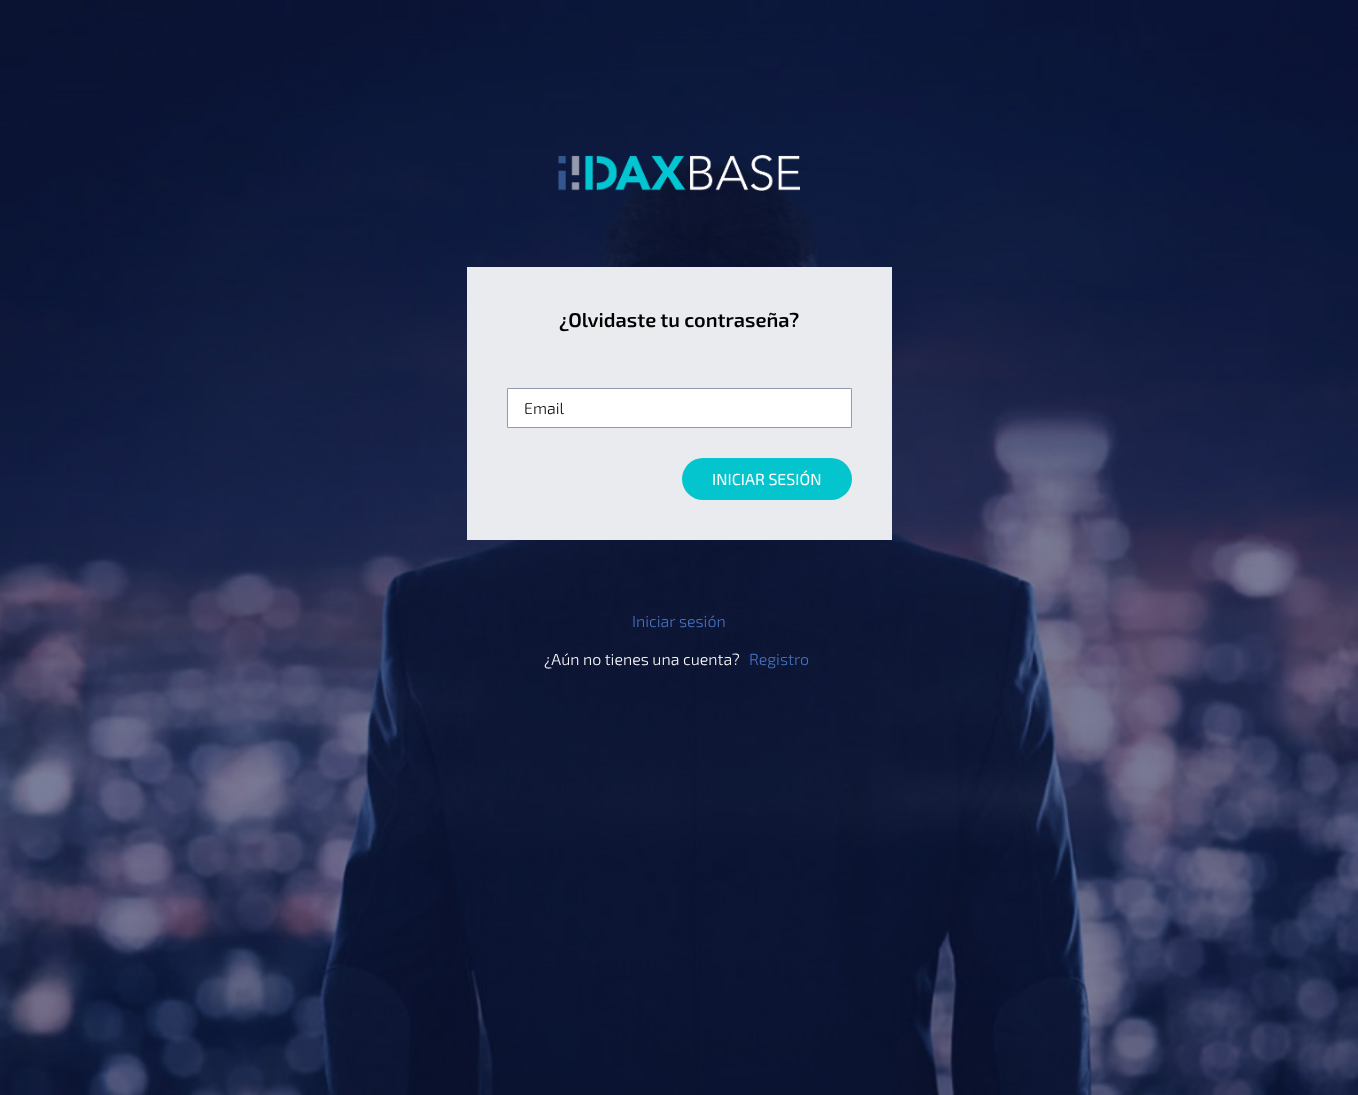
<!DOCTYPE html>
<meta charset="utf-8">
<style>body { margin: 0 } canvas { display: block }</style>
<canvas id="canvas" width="1358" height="1095"></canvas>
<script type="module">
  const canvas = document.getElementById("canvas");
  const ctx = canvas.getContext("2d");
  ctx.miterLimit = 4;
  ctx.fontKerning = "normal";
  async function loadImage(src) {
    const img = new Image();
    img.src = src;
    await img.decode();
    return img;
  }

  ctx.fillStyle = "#ffffff";
  ctx.fillRect(0, 0, 1358, 1095);
  ctx.drawImage(await loadImage("img1.png"), 0, 0, 1358, 1095);
  ctx.drawImage(await loadImage("img2.png"), 558, 155, 242, 36);
  ctx.fillStyle = "#eaebef";
  ctx.fillRect(467, 267, 425, 273);
  ctx.font = "600 20px 'Exo 2'";
  ctx.fillStyle = "#000000";
  ctx.fillText("¿Olvidaste tu contraseña?", 559, 327);
  ctx.fillStyle = "#ffffff";
  ctx.beginPath();
  ctx.rect(507.5, 388.5, 344, 39);
  ctx.fill();
  ctx.strokeStyle = "#9899ad";
  ctx.stroke();
  ctx.font = "300 16px 'Exo 2'";
  ctx.fillStyle = "#000000";
  ctx.fillText("Email", 524, 414);
  ctx.fillStyle = "#04c5ce";
  ctx.beginPath();
  ctx.roundRect(682, 458, 170, 42, 21);
  ctx.fill();
  ctx.font = "16px 'Exo 2'";
  ctx.fillStyle = "#ffffff";
  ctx.fillText("INICIAR SESIÓN", 712, 485);
  ctx.font = "300 16px 'Exo 2'";
  ctx.fillStyle = "#4775c7";
  ctx.fillText("Iniciar sesión", 632, 627);
  ctx.fillStyle = "#ffffff";
  ctx.fillText("¿Aún no tienes una cuenta?", 544, 665);
  ctx.fillStyle = "#4775c7";
  ctx.fillText("Registro", 749, 665);
</script>
